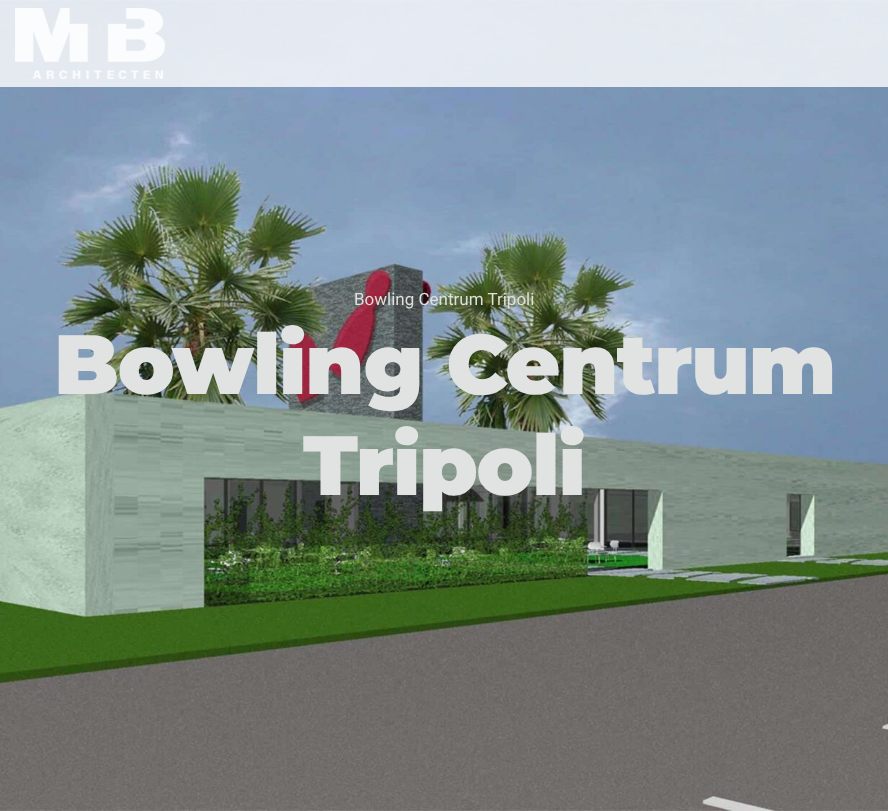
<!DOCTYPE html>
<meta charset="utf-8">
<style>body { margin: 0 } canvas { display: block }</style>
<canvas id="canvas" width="888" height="811"></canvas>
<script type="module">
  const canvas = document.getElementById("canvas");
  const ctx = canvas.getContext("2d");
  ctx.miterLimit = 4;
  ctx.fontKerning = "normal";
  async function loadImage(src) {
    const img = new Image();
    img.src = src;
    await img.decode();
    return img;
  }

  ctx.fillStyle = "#ffffff";
  ctx.fillRect(0, 0, 888, 811);
  ctx.drawImage(await loadImage("img2.png"), 0, 0, 888, 811);
  ctx.fillStyle = "rgba(255, 255, 255, 0.8)";
  ctx.fillRect(0, 0, 888, 87);
  ctx.drawImage(await loadImage("img1.png"), 15, 8, 150, 71);
  ctx.font = "17px Roboto";
  ctx.fillStyle = "#dfdfdc";
  ctx.fillText("Bowling Centrum Tripoli", 354, 305);
  ctx.letterSpacing = "-1.25px";
  ctx.font = "900 84px Montserrat";
  ctx.fillStyle = "#e1e3e3";
  ctx.fillText("Bowling Centrum", 54, 394);
  ctx.fillText("Tripoli", 303, 495);
</script>
